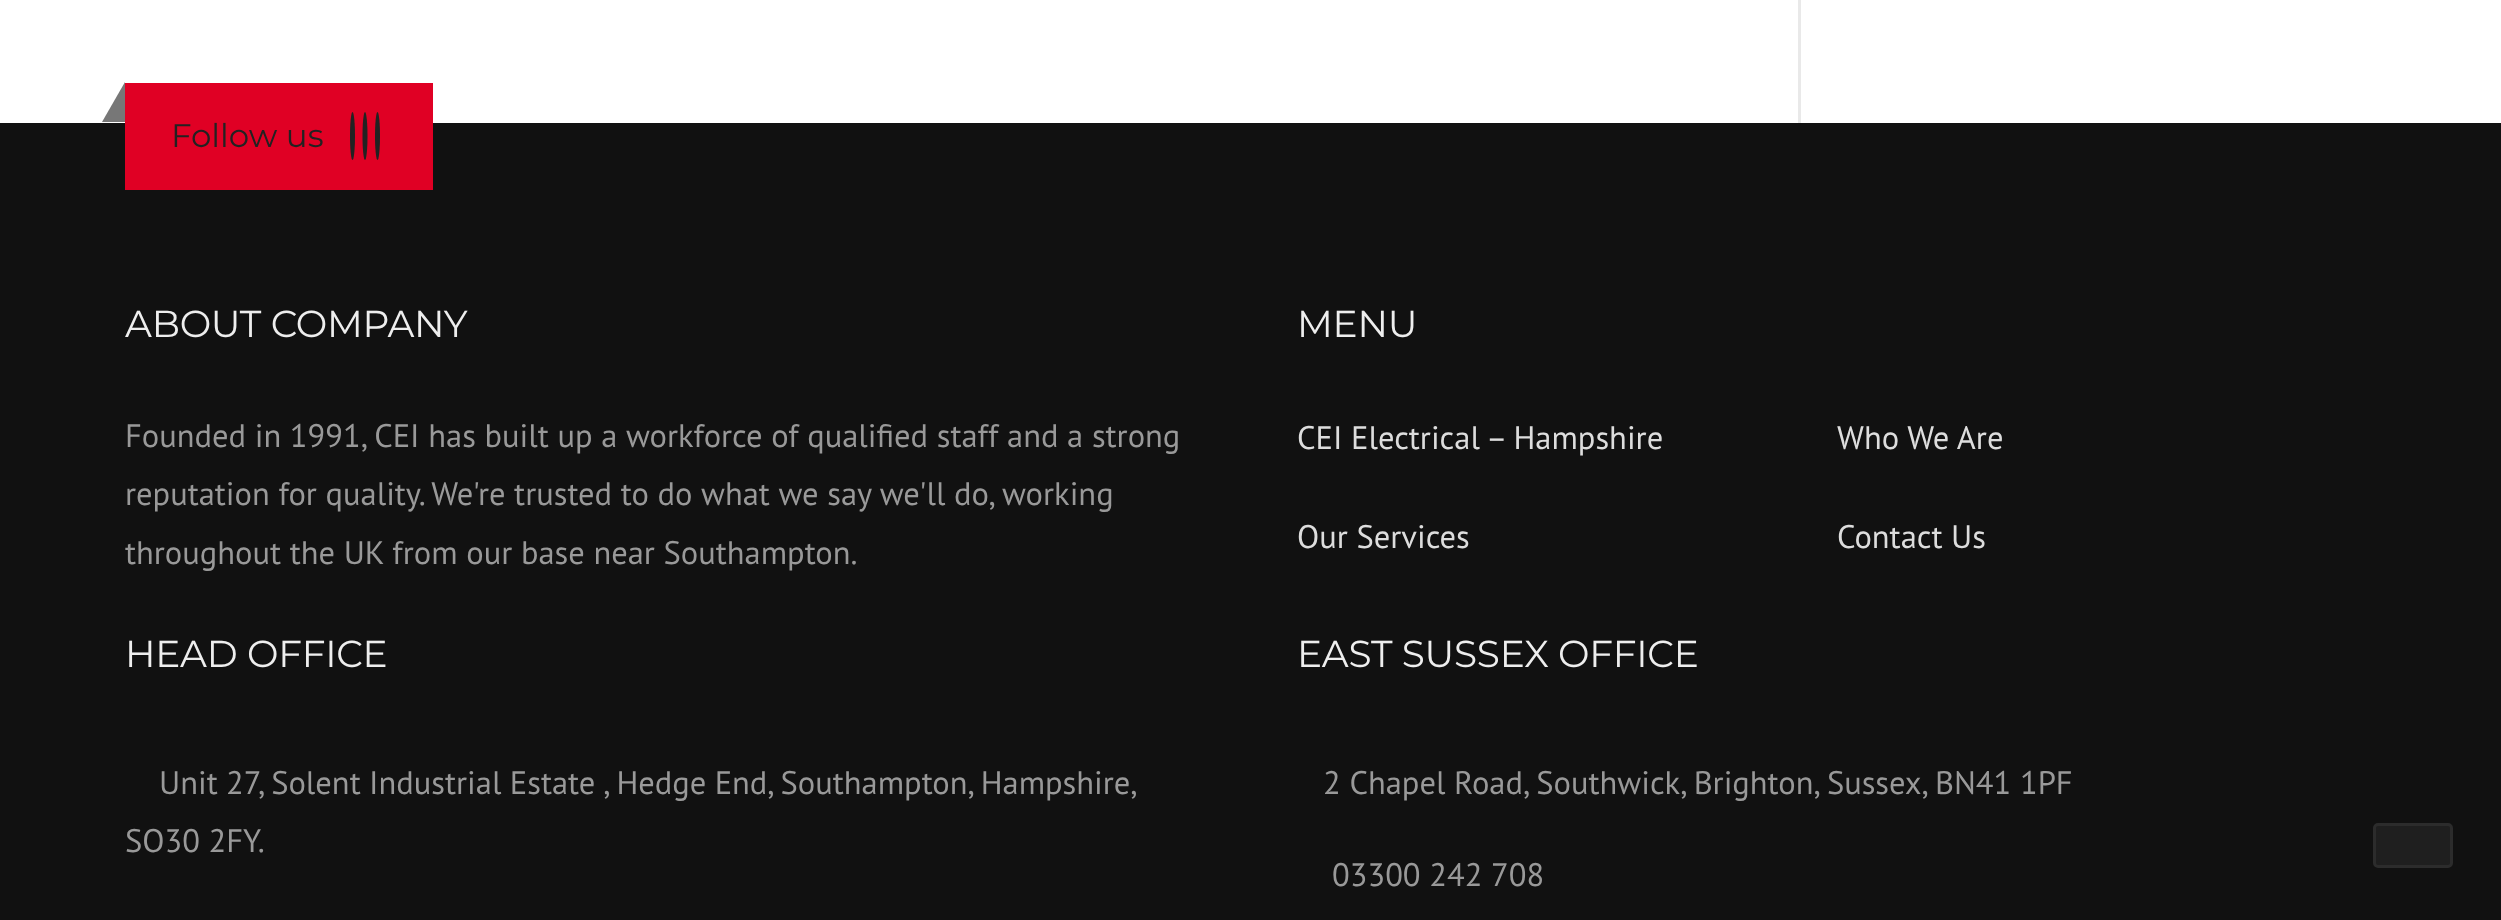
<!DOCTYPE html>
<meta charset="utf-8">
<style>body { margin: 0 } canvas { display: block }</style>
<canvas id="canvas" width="2501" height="920"></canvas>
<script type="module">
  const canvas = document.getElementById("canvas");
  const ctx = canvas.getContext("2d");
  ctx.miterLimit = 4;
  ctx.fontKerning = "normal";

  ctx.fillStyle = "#ffffff";
  ctx.fillRect(0, 0, 2501, 920);
  ctx.fillStyle = "#e9e9e9";
  ctx.fillRect(1798, 0, 3, 123);
  ctx.fillStyle = "#111111";
  ctx.fillRect(0, 123, 2501, 797);
  ctx.fillStyle = "#e00024";
  ctx.fillRect(125, 83, 308, 107);
  ctx.fillStyle = "#777777";
  ctx.beginPath();
  ctx.moveTo(125, 82);
  ctx.lineTo(125, 122);
  ctx.lineTo(102, 122);
  ctx.closePath();
  ctx.fill();
  ctx.font = "32.5px Montserrat";
  ctx.fillStyle = "#222222";
  ctx.fillText("Follow us", 171, 147);
  ctx.beginPath();
  ctx.ellipse(352.5, 136, 2.5, 24, 0, 0, Math.PI * 2);
  ctx.fill();
  ctx.beginPath();
  ctx.ellipse(365, 136, 2.5, 24, 0, 0, Math.PI * 2);
  ctx.fill();
  ctx.beginPath();
  ctx.ellipse(377.5, 136, 2.5, 24, 0, 0, Math.PI * 2);
  ctx.fill();
  ctx.letterSpacing = "-0.25px";
  ctx.font = "37.5px Montserrat";
  ctx.fillStyle = "#eeeeee";
  ctx.fillText("ABOUT COMPANY", 125, 337);
  ctx.letterSpacing = "0px";
  ctx.font = "32.5px PT Sans";
  ctx.fillStyle = "#999999";
  ctx.fillText("Founded in 1991, CEI has built up a workforce of qualified staff and a strong", 125, 447);
  ctx.fillText("reputation for quality. We're trusted to do what we say we'll do, working", 125, 505);
  ctx.fillText("throughout the UK from our base near Southampton.", 125, 564);
  ctx.letterSpacing = "-0.25px";
  ctx.font = "37.5px Montserrat";
  ctx.fillStyle = "#eeeeee";
  ctx.fillText("MENU", 1297, 337);
  ctx.letterSpacing = "0px";
  ctx.font = "32.5px PT Sans";
  ctx.fillStyle = "#dddddd";
  ctx.fillText("CEI Electrical – Hampshire", 1297, 449);
  ctx.fillText("Who We Are", 1837, 449);
  ctx.fillText("Our Services", 1297, 548);
  ctx.fillText("Contact Us", 1837, 548);
  ctx.letterSpacing = "-0.25px";
  ctx.font = "37.5px Montserrat";
  ctx.fillStyle = "#eeeeee";
  ctx.fillText("HEAD OFFICE", 125, 667);
  ctx.letterSpacing = "0px";
  ctx.wordSpacing = "-0.25px";
  ctx.font = "32.5px PT Sans";
  ctx.fillStyle = "#999999";
  ctx.fillText("Unit 27, Solent Industrial Estate , Hedge End, Southampton, Hampshire,", 159, 794);
  ctx.wordSpacing = "0px";
  ctx.fillText("SO30 2FY.", 125, 852);
  ctx.letterSpacing = "-0.25px";
  ctx.font = "37.5px Montserrat";
  ctx.fillStyle = "#eeeeee";
  ctx.fillText("EAST SUSSEX OFFICE", 1297, 667);
  ctx.letterSpacing = "0px";
  ctx.font = "32.5px PT Sans";
  ctx.fillStyle = "#999999";
  ctx.fillText("2 Chapel Road, Southwick, Brighton, Sussex, BN41 1PF", 1323, 794);
  ctx.fillText("03300 242 708", 1332, 886);
  ctx.fillStyle = "#1f1f1f";
  ctx.beginPath();
  ctx.roundRect(2374.5, 824.5, 77, 42, 3.5);
  ctx.fill();
  ctx.strokeStyle = "#2c2c2c";
  ctx.lineWidth = 3;
  ctx.stroke();
</script>
